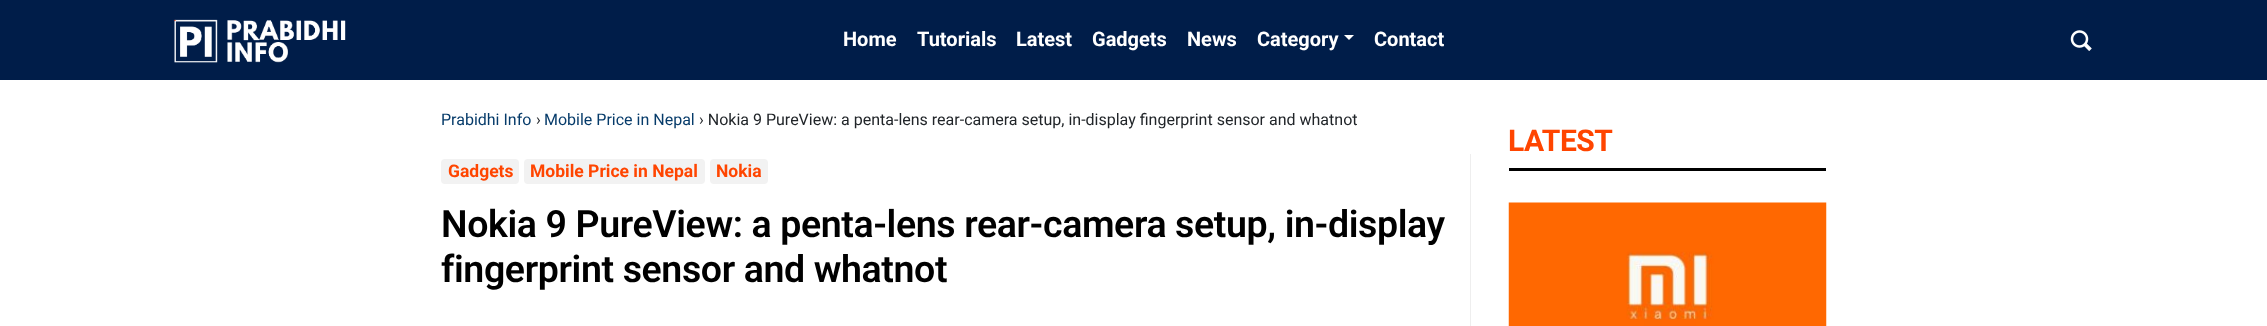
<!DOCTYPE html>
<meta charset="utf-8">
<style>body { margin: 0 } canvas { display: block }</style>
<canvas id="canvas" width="2267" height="326"></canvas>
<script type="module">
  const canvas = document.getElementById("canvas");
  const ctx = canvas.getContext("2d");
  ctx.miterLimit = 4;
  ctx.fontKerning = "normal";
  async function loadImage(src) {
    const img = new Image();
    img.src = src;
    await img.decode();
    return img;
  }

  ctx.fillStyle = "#ffffff";
  ctx.fillRect(0, 0, 2267, 326);
  ctx.fillStyle = "#001d49";
  ctx.fillRect(0, 0, 2267, 80);
  ctx.drawImage(await loadImage("img1.png"), 173, 19, 173, 44);
  ctx.font = "bold 20px Roboto";
  ctx.fillStyle = "#ffffff";
  ctx.fillText("Home", 843, 46);
  ctx.fillText("Tutorials", 917, 46);
  ctx.fillText("Latest", 1016, 46);
  ctx.fillText("Gadgets", 1092, 46);
  ctx.fillText("News", 1187, 46);
  ctx.fillText("Category", 1257, 46);
  ctx.beginPath();
  ctx.moveTo(1344, 35);
  ctx.lineTo(1354, 35);
  ctx.lineTo(1349, 40);
  ctx.closePath();
  ctx.fill();
  ctx.fillText("Contact", 1374, 46);
  ctx.drawImage(await loadImage("img2.png"), 2070, 30, 22, 21);
  ctx.font = "16px Roboto";
  ctx.fillStyle = "#063b6a";
  ctx.fillText("Prabidhi Info", 441, 125);
  ctx.fillStyle = "#212529";
  ctx.fillText("›", 536, 125);
  ctx.fillStyle = "#063b6a";
  ctx.fillText("Mobile Price in Nepal", 544, 125);
  ctx.fillStyle = "#212529";
  ctx.fillText("› Nokia 9 PureView: a penta-lens rear-camera setup, in-display fingerprint sensor and whatnot", 699, 125);
  ctx.fillStyle = "#eeeeee";
  ctx.fillRect(1470, 154, 1, 172);
  ctx.fillStyle = "#f2f2f2";
  ctx.beginPath();
  ctx.roundRect(441, 159, 78, 25, 4);
  ctx.fill();
  ctx.font = "bold 17.5px Roboto";
  ctx.fillStyle = "#ff4500";
  ctx.fillText("Gadgets", 448, 177);
  ctx.fillStyle = "#f2f2f2";
  ctx.beginPath();
  ctx.roundRect(524, 159, 181, 25, 4);
  ctx.fill();
  ctx.fillStyle = "#ff4500";
  ctx.fillText("Mobile Price in Nepal", 530, 177);
  ctx.fillStyle = "#f2f2f2";
  ctx.beginPath();
  ctx.roundRect(710, 159, 58, 25, 4);
  ctx.fill();
  ctx.fillStyle = "#ff4500";
  ctx.fillText("Nokia", 716, 177);
  ctx.letterSpacing = "-0.38px";
  ctx.font = "600 37.5px Roboto";
  ctx.fillStyle = "#000000";
  ctx.fillText("Nokia 9 PureView: a penta-lens rear-camera setup, in-display", 441, 237);
  ctx.fillText("fingerprint sensor and whatnot", 441, 282);
  ctx.fillRect(1509, 168, 317, 3);
  ctx.letterSpacing = "-0.5px";
  ctx.font = "bold 30px Roboto";
  ctx.fillStyle = "#ff4500";
  ctx.fillText("LATEST", 1508, 151);
  ctx.drawImage(await loadImage("img3.png"), 1508, 202, 319, 124);
</script>
